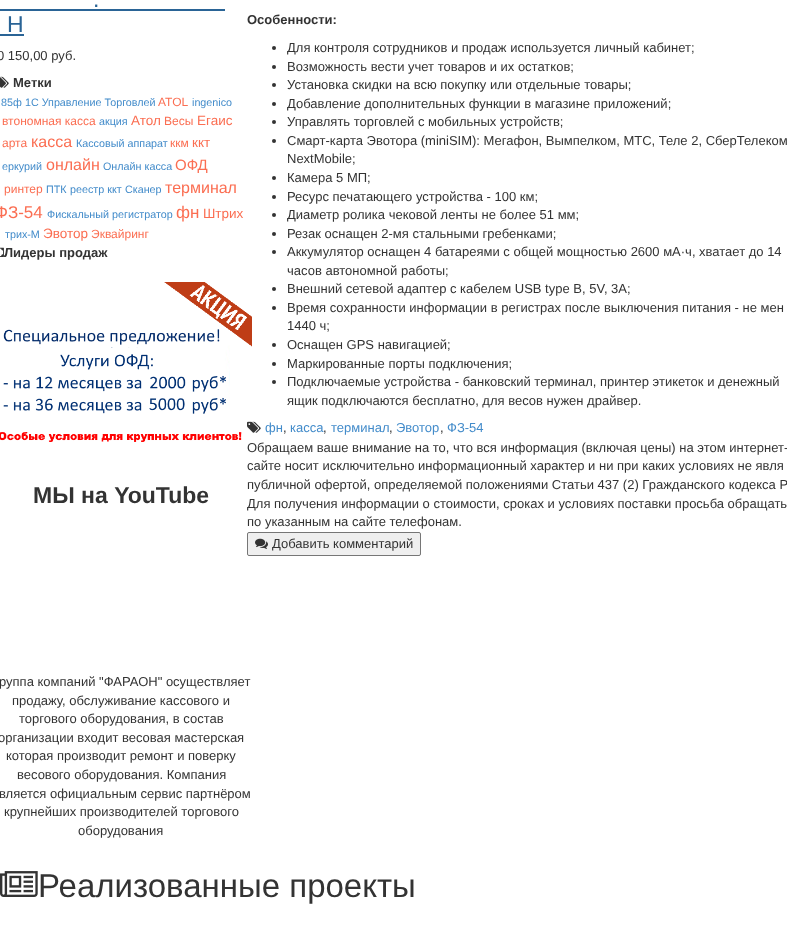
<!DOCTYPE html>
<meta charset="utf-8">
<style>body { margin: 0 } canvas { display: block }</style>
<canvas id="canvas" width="787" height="936"></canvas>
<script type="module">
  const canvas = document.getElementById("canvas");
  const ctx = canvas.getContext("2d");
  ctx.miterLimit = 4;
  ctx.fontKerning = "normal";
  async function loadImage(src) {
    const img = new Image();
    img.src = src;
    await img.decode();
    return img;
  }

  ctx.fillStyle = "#ffffff";
  ctx.fillRect(0, 0, 787, 936);
  ctx.font = "23px Liberation Sans";
  ctx.fillStyle = "#2a6496";
  ctx.fillText(".", 93, 7);
  ctx.fillRect(0, 9, 225, 2);
  ctx.fillText("Н", 7, 32);
  ctx.fillRect(0, 34, 24, 2);
  ctx.font = "13px Liberation Sans";
  ctx.fillStyle = "#333333";
  ctx.fillText("0 150,00 руб.", -3, 60);
  ctx.drawImage(await loadImage("img1.png"), 0, 76, 9, 12);
  ctx.font = "bold 13px Liberation Sans";
  ctx.fillText("Метки", 13, 87);
  ctx.font = "10.75px Liberation Sans";
  ctx.fillStyle = "#428bca";
  ctx.fillText("85ф", 1, 106);
  ctx.fillText("1C Управление Торговлей", 25, 106);
  ctx.font = "12px Liberation Sans";
  ctx.fillStyle = "#fb6e52";
  ctx.fillText("ATOL", 158, 106);
  ctx.font = "10.75px Liberation Sans";
  ctx.fillStyle = "#428bca";
  ctx.fillText("ingenico", 192, 106);
  ctx.font = "12px Liberation Sans";
  ctx.fillStyle = "#fb6e52";
  ctx.fillText("втономная касса", 2, 125);
  ctx.font = "10.75px Liberation Sans";
  ctx.fillStyle = "#428bca";
  ctx.fillText("акция", 99, 125);
  ctx.font = "13.5px Liberation Sans";
  ctx.fillStyle = "#fb6e52";
  ctx.fillText("Атол", 131, 125);
  ctx.font = "12px Liberation Sans";
  ctx.fillText("Весы", 164, 125);
  ctx.font = "13.5px Liberation Sans";
  ctx.fillText("Егаис", 197, 125);
  ctx.font = "12px Liberation Sans";
  ctx.fillText("арта", 2, 147);
  ctx.font = "16px Liberation Sans";
  ctx.fillText("касса", 31, 147);
  ctx.font = "10.75px Liberation Sans";
  ctx.fillStyle = "#428bca";
  ctx.fillText("Кассовый аппарат", 76, 147);
  ctx.font = "12px Liberation Sans";
  ctx.fillStyle = "#fb6e52";
  ctx.fillText("ккм", 170, 147);
  ctx.font = "13.5px Liberation Sans";
  ctx.fillText("ккт", 192, 147);
  ctx.font = "10.75px Liberation Sans";
  ctx.fillStyle = "#428bca";
  ctx.fillText("еркурий", 2, 170);
  ctx.font = "16px Liberation Sans";
  ctx.fillStyle = "#fb6e52";
  ctx.fillText("онлайн", 46, 170);
  ctx.font = "10.75px Liberation Sans";
  ctx.fillStyle = "#428bca";
  ctx.fillText("Онлайн касса", 103, 170);
  ctx.font = "15px Liberation Sans";
  ctx.fillStyle = "#fb6e52";
  ctx.fillText("ОФД", 175, 170);
  ctx.font = "12px Liberation Sans";
  ctx.fillText("ринтер", 4, 193);
  ctx.font = "10.75px Liberation Sans";
  ctx.fillStyle = "#428bca";
  ctx.fillText("ПТК", 46, 193);
  ctx.fillText("реестр ккт", 70, 193);
  ctx.fillText("Сканер", 125, 193);
  ctx.font = "16px Liberation Sans";
  ctx.fillStyle = "#fb6e52";
  ctx.fillText("терминал", 165, 193);
  ctx.font = "17px Liberation Sans";
  ctx.fillText("ФЗ-54", -5, 218);
  ctx.font = "10.75px Liberation Sans";
  ctx.fillStyle = "#428bca";
  ctx.fillText("Фискальный регистратор", 47, 218);
  ctx.font = "17px Liberation Sans";
  ctx.fillStyle = "#fb6e52";
  ctx.fillText("фн", 176, 218);
  ctx.font = "13.5px Liberation Sans";
  ctx.fillText("Штрих", 203, 218);
  ctx.font = "10.75px Liberation Sans";
  ctx.fillStyle = "#428bca";
  ctx.fillText("трих-М", 5, 238);
  ctx.font = "13.5px Liberation Sans";
  ctx.fillStyle = "#fb6e52";
  ctx.fillText("Эвотор", 43, 238);
  ctx.font = "12px Liberation Sans";
  ctx.fillText("Эквайринг", 91, 238);
  ctx.drawImage(await loadImage("img2.png"), 0, 247, 4, 10);
  ctx.font = "bold 13px Liberation Sans";
  ctx.fillStyle = "#333333";
  ctx.fillText("Лидеры продаж", 4, 257);
  ctx.drawImage(await loadImage("img3.png"), 0, 282, 252, 160);
  ctx.font = "bold 23px Liberation Sans";
  ctx.fillText("МЫ на YouTube", 33, 503);
  ctx.font = "13px Liberation Sans";
  ctx.fillText("руппа компаний \"ФАРАОН\" осуществляет", -1, 686);
  ctx.fillText("продажу, обслуживание кассового и", 12, 705);
  ctx.fillText("торгового оборудования, в состав", 19, 723);
  ctx.fillText("организации входит весовая мастерская", -2, 742);
  ctx.fillText("которая производит ремонт и поверку", 6, 760);
  ctx.fillText("весового оборудования. Компания", 17, 779);
  ctx.fillText("вляется официальным сервис партнёром", -1, 798);
  ctx.fillText("крупнейших производителей торгового", 4, 816);
  ctx.fillText("оборудования", 78, 835);
  ctx.font = "bold 13px Liberation Sans";
  ctx.fillText("Особенности:", 247, 24);
  ctx.beginPath();
  ctx.arc(274, 48, 2, 0, Math.PI * 2);
  ctx.fill();
  ctx.font = "13px Liberation Sans";
  ctx.fillText("Для контроля сотрудников и продаж используется личный кабинет;", 287, 52);
  ctx.beginPath();
  ctx.arc(274, 67, 2, 0, Math.PI * 2);
  ctx.fill();
  ctx.fillText("Возможность вести учет товаров и их остатков;", 287, 71);
  ctx.beginPath();
  ctx.arc(274, 85, 2, 0, Math.PI * 2);
  ctx.fill();
  ctx.fillText("Установка скидки на всю покупку или отдельные товары;", 287, 89);
  ctx.beginPath();
  ctx.arc(274, 104, 2, 0, Math.PI * 2);
  ctx.fill();
  ctx.fillText("Добавление дополнительных функции в магазине приложений;", 287, 108);
  ctx.beginPath();
  ctx.arc(274, 122, 2, 0, Math.PI * 2);
  ctx.fill();
  ctx.fillText("Управлять торговлей с мобильных устройств;", 287, 126);
  ctx.beginPath();
  ctx.arc(274, 141, 2, 0, Math.PI * 2);
  ctx.fill();
  ctx.fillText("Смарт-карта Эвотора (miniSIM): Мегафон, Вымпелком, МТС, Теле 2, СберТелеком", 287, 145);
  ctx.fillText("NextMobile;", 287, 163);
  ctx.beginPath();
  ctx.arc(274, 178, 2, 0, Math.PI * 2);
  ctx.fill();
  ctx.fillText("Камера 5 МП;", 287, 182);
  ctx.beginPath();
  ctx.arc(274, 197, 2, 0, Math.PI * 2);
  ctx.fill();
  ctx.fillText("Ресурс печатающего устройства - 100 км;", 287, 201);
  ctx.beginPath();
  ctx.arc(274, 215, 2, 0, Math.PI * 2);
  ctx.fill();
  ctx.fillText("Диаметр ролика чековой ленты не более 51 мм;", 287, 219);
  ctx.beginPath();
  ctx.arc(274, 234, 2, 0, Math.PI * 2);
  ctx.fill();
  ctx.fillText("Резак оснащен 2-мя стальными гребенками;", 287, 238);
  ctx.beginPath();
  ctx.arc(274, 252, 2, 0, Math.PI * 2);
  ctx.fill();
  ctx.fillText("Аккумулятор оснащен 4 батареями с общей мощностью 2600 мА·ч, хватает до 14", 287, 256);
  ctx.fillText("часов автономной работы;", 287, 275);
  ctx.beginPath();
  ctx.arc(274, 289, 2, 0, Math.PI * 2);
  ctx.fill();
  ctx.fillText("Внешний сетевой адаптер с кабелем USB type B, 5V, 3A;", 287, 293);
  ctx.beginPath();
  ctx.arc(274, 308, 2, 0, Math.PI * 2);
  ctx.fill();
  ctx.fillText("Время сохранности информации в регистрах после выключения питания - не мен", 287, 312);
  ctx.fillText("1440 ч;", 287, 330);
  ctx.beginPath();
  ctx.arc(274, 345, 2, 0, Math.PI * 2);
  ctx.fill();
  ctx.fillText("Оснащен GPS навигацией;", 287, 349);
  ctx.beginPath();
  ctx.arc(274, 364, 2, 0, Math.PI * 2);
  ctx.fill();
  ctx.fillText("Маркированные порты подключения;", 287, 368);
  ctx.beginPath();
  ctx.arc(274, 382, 2, 0, Math.PI * 2);
  ctx.fill();
  ctx.fillText("Подключаемые устройства - банковский терминал, принтер этикеток и денежный", 287, 386);
  ctx.fillText("ящик подключаются бесплатно, для весов нужен драйвер.", 287, 405);
  ctx.drawImage(await loadImage("img4.png"), 247, 421, 14, 12);
  ctx.fillStyle = "#428bca";
  ctx.fillText("фн", 265, 432);
  ctx.fillStyle = "#333333";
  ctx.fillText(",", 283, 432);
  ctx.fillStyle = "#428bca";
  ctx.fillText("касса", 290, 432);
  ctx.fillStyle = "#333333";
  ctx.fillText(",", 323, 432);
  ctx.fillStyle = "#428bca";
  ctx.fillText("терминал", 331, 432);
  ctx.fillStyle = "#333333";
  ctx.fillText(",", 389, 432);
  ctx.fillStyle = "#428bca";
  ctx.fillText("Эвотор", 396, 432);
  ctx.fillStyle = "#333333";
  ctx.fillText(",", 440, 432);
  ctx.fillStyle = "#428bca";
  ctx.fillText("ФЗ-54", 447, 432);
  ctx.fillStyle = "#333333";
  ctx.fillText("Обращаем ваше внимание на то, что вся информация (включая цены) на этом интернет-", 247, 452);
  ctx.fillText("сайте носит исключительно информационный характер и ни при каких условиях не явля", 247, 470);
  ctx.fillText("публичной офертой, определяемой положениями Статьи 437 (2) Гражданского кодекса Р", 247, 489);
  ctx.fillText("Для получения информации о стоимости, сроках и условиях поставки просьба обращать", 247, 508);
  ctx.fillText("по указанным на сайте телефонам.", 247, 526);
  ctx.fillStyle = "#efefef";
  ctx.beginPath();
  ctx.roundRect(247.5, 532.5, 173, 23, 1.5);
  ctx.fill();
  ctx.strokeStyle = "#767676";
  ctx.stroke();
  ctx.drawImage(await loadImage("img5.png"), 255, 538, 13, 11);
  ctx.fillStyle = "#333333";
  ctx.fillText("Добавить комментарий", 272, 548);
  ctx.drawImage(await loadImage("img6.png"), 0, 871, 38, 26);
  ctx.font = "33px Liberation Sans";
  ctx.fillText("Реализованные проекты", 38, 897);
</script>
